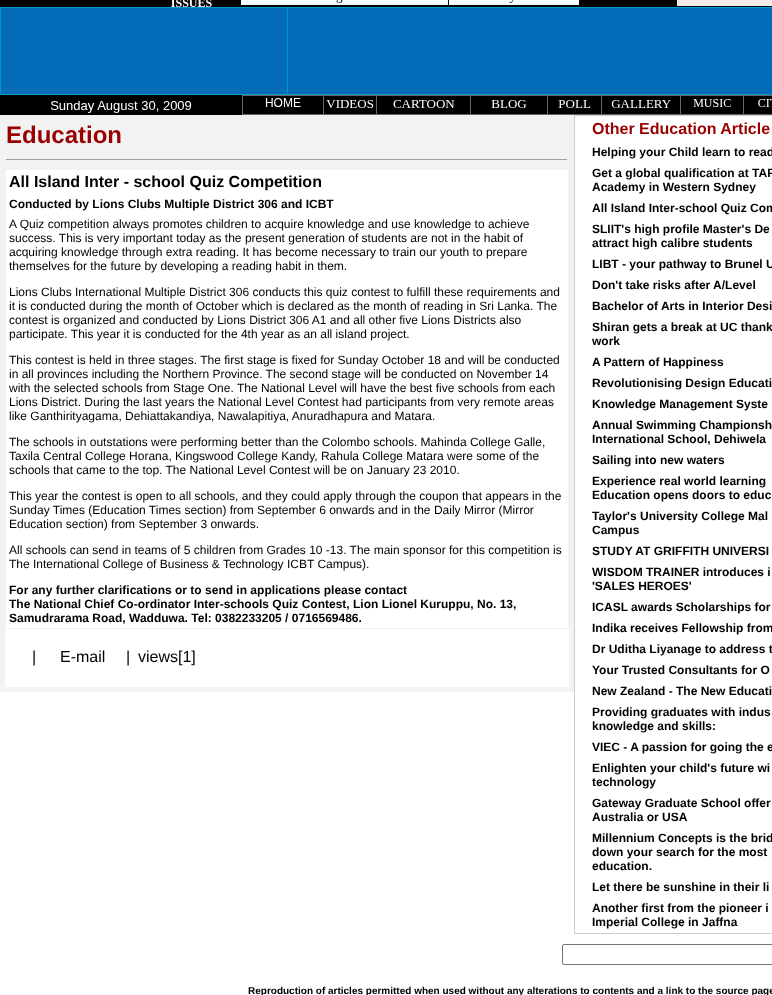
<!DOCTYPE html>
<meta charset="utf-8">
<style>body { margin: 0 } canvas { display: block }</style>
<canvas id="canvas" width="772" height="995"></canvas>
<script type="module">
  const canvas = document.getElementById("canvas");
  const ctx = canvas.getContext("2d");
  ctx.miterLimit = 4;
  ctx.fontKerning = "normal";
  async function loadImage(src) {
    const img = new Image();
    img.src = src;
    await img.decode();
    return img;
  }

  ctx.fillStyle = "#ffffff";
  ctx.fillRect(0, 0, 772, 995);
  ctx.fillStyle = "#000000";
  ctx.fillRect(0, 0, 171, 7);
  ctx.drawImage(await loadImage("img1.png"), 171, 0, 601, 7);
  ctx.fillStyle = "#0099cc";
  ctx.fillRect(0, 7, 772, 88);
  ctx.fillStyle = "#026cb8";
  ctx.fillRect(1, 8, 286, 86);
  ctx.fillRect(288, 8, 484, 86);
  ctx.fillStyle = "#000000";
  ctx.fillRect(0, 95, 50, 20);
  ctx.drawImage(await loadImage("img2.png"), 50, 95, 722, 20);
  ctx.fillStyle = "#f2f2f2";
  ctx.fillRect(0, 115, 574, 577);
  ctx.font = "bold 24px Liberation Sans";
  ctx.fillStyle = "#990000";
  ctx.fillText("Education", 6, 143);
  ctx.fillStyle = "#9f9f9f";
  ctx.fillRect(6, 159, 562, 1);
  ctx.fillStyle = "#eeeeee";
  ctx.fillRect(567, 159, 1, 1);
  ctx.fillStyle = "#ffffff";
  ctx.fillRect(6, 170, 562, 458);
  ctx.font = "bold 16px Liberation Sans";
  ctx.fillStyle = "#000000";
  ctx.fillText("All Island Inter - school Quiz Competition", 9, 187);
  ctx.font = "bold 12px Liberation Sans";
  ctx.fillText("Conducted by Lions Clubs Multiple District 306 and ICBT", 9, 208);
  ctx.font = "12px Liberation Sans";
  ctx.fillText("A Quiz competition always promotes children to acquire knowledge and use knowledge to achieve", 9, 228);
  ctx.fillText("success. This is very important today as the present generation of students are not in the habit of", 9, 242);
  ctx.fillText("acquiring knowledge through extra reading. It has become necessary to train our youth to prepare", 9, 256);
  ctx.fillText("themselves for the future by developing a reading habit in them.", 9, 270);
  ctx.fillText("Lions Clubs International Multiple District 306 conducts this quiz contest to fulfill these requirements and", 9, 296);
  ctx.fillText("it is conducted during the month of October which is declared as the month of reading in Sri Lanka. The", 9, 310);
  ctx.fillText("contest is organized and conducted by Lions District 306 A1 and all other five Lions Districts also", 9, 324);
  ctx.fillText("participate. This year it is conducted for the 4th year as an all island project.", 9, 338);
  ctx.fillText("This contest is held in three stages. The first stage is fixed for Sunday October 18 and will be conducted", 9, 364);
  ctx.fillText("in all provinces including the Northern Province. The second stage will be conducted on November 14", 9, 378);
  ctx.fillText("with the selected schools from Stage One. The National Level will have the best five schools from each", 9, 392);
  ctx.fillText("Lions District. During the last years the National Level Contest had participants from very remote areas", 9, 406);
  ctx.fillText("like Ganthirityagama, Dehiattakandiya, Nawalapitiya, Anuradhapura and Matara.", 9, 420);
  ctx.fillText("The schools in outstations were performing better than the Colombo schools. Mahinda College Galle,", 9, 446);
  ctx.fillText("Taxila Central College Horana, Kingswood College Kandy, Rahula College Matara were some of the", 9, 460);
  ctx.fillText("schools that came to the top. The National Level Contest will be on January 23 2010.", 9, 474);
  ctx.fillText("This year the contest is open to all schools, and they could apply through the coupon that appears in the", 9, 500);
  ctx.fillText("Sunday Times (Education Times section) from September 6 onwards and in the Daily Mirror (Mirror", 9, 514);
  ctx.fillText("Education section) from September 3 onwards.", 9, 528);
  ctx.fillText("All schools can send in teams of 5 children from Grades 10 -13. The main sponsor for this competition is", 9, 554);
  ctx.fillText("The International College of Business & Technology ICBT Campus).", 9, 568);
  ctx.font = "bold 12px Liberation Sans";
  ctx.fillText("For any further clarifications or to send in applications please contact", 9, 594);
  ctx.fillText("The National Chief Co-ordinator Inter-schools Quiz Contest, Lion Lionel Kuruppu, No. 13,", 9, 608);
  ctx.fillText("Samudrarama Road, Wadduwa. Tel: 0382233205 / 0716569486.", 9, 622);
  ctx.fillStyle = "#ffffff";
  ctx.fillRect(5, 629, 564, 58);
  ctx.font = "16px Liberation Sans";
  ctx.fillStyle = "#000000";
  ctx.fillText("|", 32, 662);
  ctx.fillText("E-mail", 60, 662);
  ctx.fillText("|", 126, 662);
  ctx.fillText("views[1]", 138, 662);
  ctx.fillStyle = "#cccccc";
  ctx.fillRect(574, 115, 198, 819);
  ctx.fillStyle = "#ffffff";
  ctx.fillRect(575, 116, 197, 817);
  ctx.font = "bold 16px Liberation Sans";
  ctx.fillStyle = "#990000";
  ctx.fillText("Other Education Article", 592, 134);
  ctx.font = "bold 12px Liberation Sans";
  ctx.fillStyle = "#000000";
  ctx.fillText("Helping your Child learn to read", 592, 156);
  ctx.fillText("Get a global qualification at TAF", 592, 177);
  ctx.fillText("Academy in Western Sydney", 592, 191);
  ctx.fillText("All Island Inter-school Quiz Com", 592, 212);
  ctx.fillText("SLIIT's high profile Master's De", 592, 233);
  ctx.fillText("attract high calibre students", 592, 247);
  ctx.fillText("LIBT - your pathway to Brunel U", 592, 268);
  ctx.fillText("Don't take risks after A/Level", 592, 289);
  ctx.fillText("Bachelor of Arts in Interior Desi", 592, 310);
  ctx.fillText("Shiran gets a break at UC thank", 592, 331);
  ctx.fillText("work", 592, 345);
  ctx.fillText("A Pattern of Happiness", 592, 366);
  ctx.fillText("Revolutionising Design Educati", 592, 387);
  ctx.fillText("Knowledge Management Syste", 592, 408);
  ctx.fillText("Annual Swimming Championsh", 592, 429);
  ctx.fillText("International School, Dehiwela", 592, 443);
  ctx.fillText("Sailing into new waters", 592, 464);
  ctx.fillText("Experience real world learning", 592, 485);
  ctx.fillText("Education opens doors to educ", 592, 499);
  ctx.fillText("Taylor's University College Mal", 592, 520);
  ctx.fillText("Campus", 592, 534);
  ctx.fillText("STUDY AT GRIFFITH UNIVERSI", 592, 555);
  ctx.fillText("WISDOM TRAINER introduces i", 592, 576);
  ctx.fillText("'SALES HEROES'", 592, 590);
  ctx.fillText("ICASL awards Scholarships for", 592, 611);
  ctx.fillText("Indika receives Fellowship from", 592, 632);
  ctx.fillText("Dr Uditha Liyanage to address t", 592, 653);
  ctx.fillText("Your Trusted Consultants for O", 592, 674);
  ctx.fillText("New Zealand - The New Educati", 592, 695);
  ctx.fillText("Providing graduates with indus", 592, 716);
  ctx.fillText("knowledge and skills:", 592, 730);
  ctx.fillText("VIEC - A passion for going the e", 592, 751);
  ctx.fillText("Enlighten your child's future wi", 592, 772);
  ctx.fillText("technology", 592, 786);
  ctx.fillText("Gateway Graduate School offer", 592, 807);
  ctx.fillText("Australia or USA", 592, 821);
  ctx.fillText("Millennium Concepts is the brid", 592, 842);
  ctx.fillText("down your search for the most", 592, 856);
  ctx.fillText("education.", 592, 870);
  ctx.fillText("Let there be sunshine in their li", 592, 891);
  ctx.fillText("Another first from the pioneer i", 592, 912);
  ctx.fillText("Imperial College in Jaffna", 592, 926);
  ctx.beginPath();
  ctx.roundRect(562.5, 944.5, 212, 20, 1.5);
  ctx.strokeStyle = "#767676";
  ctx.stroke();
  ctx.font = "bold 10px Liberation Sans";
  ctx.fillText("Reproduction of articles permitted when used without any alterations to contents and a link to the source page", 248, 994);
</script>
